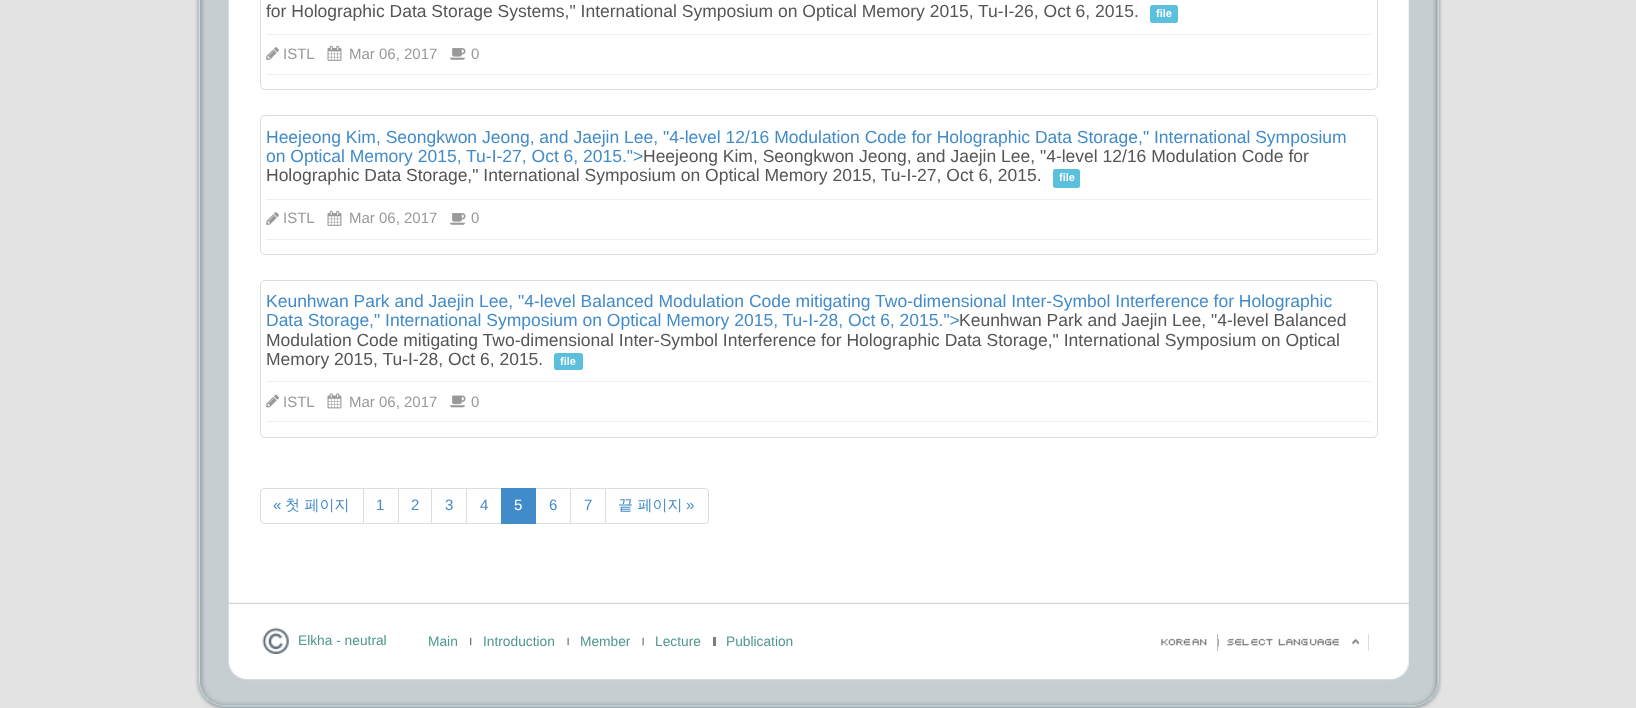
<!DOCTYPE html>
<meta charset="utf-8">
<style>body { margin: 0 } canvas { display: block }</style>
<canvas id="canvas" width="1636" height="708"></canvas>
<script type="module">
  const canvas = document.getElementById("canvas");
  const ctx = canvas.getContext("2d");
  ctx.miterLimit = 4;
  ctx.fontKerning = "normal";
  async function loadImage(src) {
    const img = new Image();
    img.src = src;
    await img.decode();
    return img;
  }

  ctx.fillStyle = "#e3e3e3";
  ctx.fillRect(0, 0, 1636, 708);
  ctx.drawImage(await loadImage("img1.png"), 195, 0, 1247, 603);
  ctx.beginPath();
  ctx.roundRect(260.5, -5.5, 1117, 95, 4.5);
  ctx.strokeStyle = "#dddddd";
  ctx.stroke();
  ctx.font = "17.5px Liberation Sans";
  ctx.fillStyle = "#555555";
  ctx.fillText("for Holographic Data Storage Systems,\" International Symposium on Optical Memory 2015, Tu-I-26, Oct 6, 2015.", 266, 17);
  ctx.fillStyle = "#5bc0de";
  ctx.beginPath();
  ctx.roundRect(1150, 5, 28, 18, 2.5);
  ctx.fill();
  ctx.font = "bold 11px Liberation Sans";
  ctx.fillStyle = "#ffffff";
  ctx.fillText("file", 1156, 17);
  ctx.fillStyle = "#efefef";
  ctx.fillRect(266, 34, 1105, 1);
  ctx.fillRect(266, 74, 1105, 1);
  ctx.drawImage(await loadImage("img2.png"), 266, 47, 13, 13);
  ctx.font = "15px Liberation Sans";
  ctx.fillStyle = "#999999";
  ctx.fillText("ISTL", 283, 59);
  ctx.drawImage(await loadImage("img3.png"), 327, 45, 15, 16);
  ctx.fillText("Mar 06, 2017", 349, 59);
  ctx.drawImage(await loadImage("img4.png"), 450, 48, 16, 12);
  ctx.fillText("0", 471, 59);
  ctx.beginPath();
  ctx.roundRect(260.5, 115.5, 1117, 139, 4.5);
  ctx.stroke();
  ctx.font = "17.5px Liberation Sans";
  ctx.fillStyle = "#428bca";
  ctx.fillText("Heejeong Kim, Seongkwon Jeong, and Jaejin Lee, \"4-level 12/16 Modulation Code for Holographic Data Storage,\" International Symposium", 266, 143);
  ctx.fillText("on Optical Memory 2015, Tu-I-27, Oct 6, 2015.\">", 266, 162);
  ctx.fillStyle = "#555555";
  ctx.fillText("Heejeong Kim, Seongkwon Jeong, and Jaejin Lee, \"4-level 12/16 Modulation Code for", 643, 162);
  ctx.fillText("Holographic Data Storage,\" International Symposium on Optical Memory 2015, Tu-I-27, Oct 6, 2015.", 266, 181);
  ctx.fillStyle = "#5bc0de";
  ctx.beginPath();
  ctx.roundRect(1053, 169, 27, 19, 2.5);
  ctx.fill();
  ctx.font = "bold 11px Liberation Sans";
  ctx.fillStyle = "#ffffff";
  ctx.fillText("file", 1059, 181);
  ctx.fillStyle = "#efefef";
  ctx.fillRect(266, 199, 1105, 1);
  ctx.fillRect(266, 239, 1105, 1);
  ctx.drawImage(await loadImage("img2.png"), 266, 212, 13, 13);
  ctx.font = "15px Liberation Sans";
  ctx.fillStyle = "#999999";
  ctx.fillText("ISTL", 283, 223);
  ctx.drawImage(await loadImage("img3.png"), 327, 210, 15, 16);
  ctx.fillText("Mar 06, 2017", 349, 223);
  ctx.drawImage(await loadImage("img4.png"), 450, 213, 16, 12);
  ctx.fillText("0", 471, 223);
  ctx.beginPath();
  ctx.roundRect(260.5, 280.5, 1117, 157, 4.5);
  ctx.stroke();
  ctx.font = "17.5px Liberation Sans";
  ctx.fillStyle = "#428bca";
  ctx.fillText("Keunhwan Park and Jaejin Lee, \"4-level Balanced Modulation Code mitigating Two-dimensional Inter-Symbol Interference for Holographic", 266, 307);
  ctx.fillText("Data Storage,\" International Symposium on Optical Memory 2015, Tu-I-28, Oct 6, 2015.\">", 266, 326);
  ctx.fillStyle = "#555555";
  ctx.fillText("Keunhwan Park and Jaejin Lee, \"4-level Balanced", 959, 326);
  ctx.fillText("Modulation Code mitigating Two-dimensional Inter-Symbol Interference for Holographic Data Storage,\" International Symposium on Optical", 266, 346);
  ctx.fillText("Memory 2015, Tu-I-28, Oct 6, 2015.", 266, 365);
  ctx.fillStyle = "#5bc0de";
  ctx.beginPath();
  ctx.roundRect(554, 353, 29, 17, 2.5);
  ctx.fill();
  ctx.font = "bold 11px Liberation Sans";
  ctx.fillStyle = "#ffffff";
  ctx.fillText("file", 560, 365);
  ctx.fillStyle = "#efefef";
  ctx.fillRect(266, 381, 1105, 1);
  ctx.fillRect(266, 421, 1105, 1);
  ctx.drawImage(await loadImage("img5.png"), 266, 394, 13, 14);
  ctx.font = "15px Liberation Sans";
  ctx.fillStyle = "#999999";
  ctx.fillText("ISTL", 283, 407);
  ctx.drawImage(await loadImage("img6.png"), 327, 393, 15, 16);
  ctx.fillText("Mar 06, 2017", 349, 407);
  ctx.drawImage(await loadImage("img7.png"), 450, 395, 16, 13);
  ctx.fillText("0", 471, 407);
  ctx.beginPath();
  ctx.roundRect(260.5, 488.5, 103, 35, [3.5, 0, 0, 3.5]);
  ctx.stroke();
  ctx.fillStyle = "#428bca";
  ctx.fillText("«", 273, 510);
  ctx.font = "500 15px WenQuanYi Zen Hei";
  ctx.fillText("첫 페이지", 285, 510);
  ctx.strokeRect(363.5, 488.5, 35, 35);
  ctx.font = "15px Liberation Sans";
  ctx.fillText("1", 376, 510);
  ctx.strokeRect(398.5, 488.5, 34, 35);
  ctx.fillText("2", 411, 510);
  ctx.fillStyle = "#ffffff";
  ctx.fillRect(432, 489, 1, 34);
  ctx.strokeRect(431.5, 488.5, 36, 35);
  ctx.fillStyle = "#428bca";
  ctx.fillText("3", 445, 510);
  ctx.fillStyle = "#ffffff";
  ctx.fillRect(467, 489, 1, 34);
  ctx.strokeRect(466.5, 488.5, 36, 35);
  ctx.fillStyle = "#428bca";
  ctx.fillText("4", 480, 510);
  ctx.strokeRect(535.5, 488.5, 35, 35);
  ctx.fillRect(501, 488, 35, 36);
  ctx.fillStyle = "#ffffff";
  ctx.fillText("5", 514, 510);
  ctx.fillStyle = "#428bca";
  ctx.fillText("6", 549, 510);
  ctx.strokeRect(570.5, 488.5, 35, 35);
  ctx.fillText("7", 584, 510);
  ctx.fillStyle = "#ffffff";
  ctx.beginPath();
  ctx.roundRect(605.5, 488.5, 103, 35, [0, 3.5, 3.5, 0]);
  ctx.fill();
  ctx.stroke();
  ctx.font = "500 15px WenQuanYi Zen Hei";
  ctx.fillStyle = "#428bca";
  ctx.fillText("끝 페이지", 618, 510);
  ctx.font = "15px Liberation Sans";
  ctx.fillText("»", 686, 510);
  ctx.drawImage(await loadImage("img8.png"), 195, 602, 1247, 106);
  ctx.drawImage(await loadImage("img9.png"), 262, 627, 27, 27);
  ctx.font = "13.75px Liberation Sans";
  ctx.fillStyle = "#50988f";
  ctx.fillText("Elkha - neutral", 298, 645);
  ctx.fillText("Main", 428, 646);
  ctx.drawImage(await loadImage("img10.png"), 470, 637, 2, 9);
  ctx.fillText("Introduction", 483, 646);
  ctx.drawImage(await loadImage("img11.png"), 567, 637, 2, 9);
  ctx.fillText("Member", 580, 646);
  ctx.drawImage(await loadImage("img11.png"), 642, 637, 2, 9);
  ctx.fillText("Lecture", 655, 646);
  ctx.fillText("Publication", 726, 646);
  ctx.fillStyle = "#7e7e7e";
  ctx.fillRect(713, 637, 3, 9);
  ctx.drawImage(await loadImage("img12.png"), 1218, 639, 1, 8);
  ctx.fillStyle = "#777777";
  ctx.fillRect(1161, 634, 57, 17);
  ctx.drawImage(await loadImage("img13.png"), 1153, 634, 65, 17);
  ctx.fillRect(1227, 634, 142, 17);
  ctx.drawImage(await loadImage("img14.png"), 1218, 634, 151, 17);
</script>
